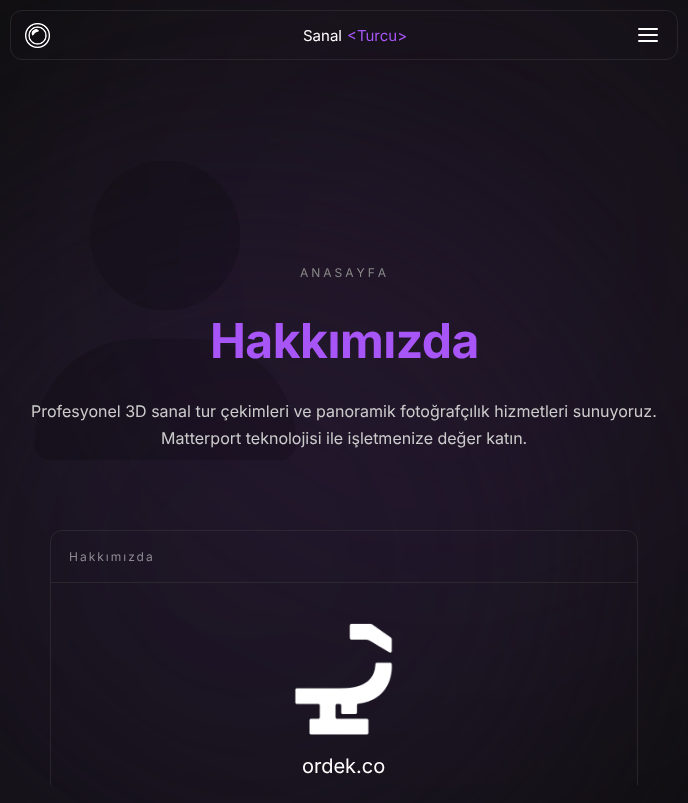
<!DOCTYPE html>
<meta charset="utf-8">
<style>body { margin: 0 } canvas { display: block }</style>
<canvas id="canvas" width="688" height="803"></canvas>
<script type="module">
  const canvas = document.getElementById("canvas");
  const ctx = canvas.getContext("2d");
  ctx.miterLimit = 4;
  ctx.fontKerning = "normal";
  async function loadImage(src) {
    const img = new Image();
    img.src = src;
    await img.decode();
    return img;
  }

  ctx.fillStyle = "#0f0f0f";
  ctx.fillRect(0, 0, 688, 803);
  ctx.fillStyle = "#1b1522";
  ctx.filter = "blur(150px)";
  ctx.beginPath();
  ctx.roundRect(-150, 153, 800, 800, 400);
  ctx.fill();
  ctx.filter = "none";
  ctx.fillStyle = "rgba(136, 68, 197, 0.08)";
  ctx.filter = "blur(150px)";
  ctx.beginPath();
  ctx.roundRect(38, -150, 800, 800, 400);
  ctx.fill();
  ctx.filter = "none";
  ctx.beginPath();
  ctx.roundRect(10.5, 10.5, 667, 49, 11.5);
  ctx.strokeStyle = "rgba(58, 58, 58, 0.5)";
  ctx.stroke();
  ctx.drawImage(await loadImage("img1.png"), 25, 23, 25, 25);
  ctx.font = "15px Inter";
  ctx.fillStyle = "#ffffff";
  ctx.fillText("Sanal", 303, 41);
  ctx.fillStyle = "#a855f7";
  ctx.fillText("<Turcu>", 347, 41);
  ctx.fillStyle = "#ffffff";
  ctx.beginPath();
  ctx.roundRect(638, 28, 20, 2, 1);
  ctx.fill();
  ctx.beginPath();
  ctx.roundRect(638, 34, 20, 2, 1);
  ctx.fill();
  ctx.beginPath();
  ctx.roundRect(638, 40, 20, 2, 1);
  ctx.fill();
  ctx.drawImage(await loadImage("img2.png"), 34, 161, 262, 299);
  ctx.letterSpacing = "3px";
  ctx.font = "12px Inter";
  ctx.fillStyle = "#888888";
  ctx.fillText("ANASAYFA", 300, 277);
  ctx.letterSpacing = "-0.5px";
  ctx.font = "bold 48px Inter";
  ctx.fillStyle = "#a855f7";
  ctx.fillText("Hakkımızda", 210, 358);
  ctx.letterSpacing = "0px";
  ctx.font = "16px Inter";
  ctx.fillStyle = "#cccccc";
  ctx.fillText("Profesyonel 3D sanal tur çekimleri ve panoramik fotoğrafçılık hizmetleri sunuyoruz.", 31, 417);
  ctx.fillText("Matterport teknolojisi ile işletmenize değer katın.", 161, 444);
  ctx.beginPath();
  ctx.roundRect(50.5, 530.5, 587, 52, [11.5, 11.5, 0, 0]);
  ctx.stroke();
  ctx.letterSpacing = "2px";
  ctx.font = "12px Inter";
  ctx.fillStyle = "#8e8a92";
  ctx.fillText("Hakkımızda", 69, 561);
  ctx.save();
  ctx.beginPath();
  ctx.rect(10, 68, 668, 717);
  ctx.clip();
  ctx.fillStyle = "rgba(58, 58, 58, 0.5)";
  ctx.beginPath();
  ctx.moveTo(50, 583);
  ctx.lineTo(638, 583);
  ctx.lineTo(638, 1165);
  ctx.bezierCurveTo(638, 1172, 633, 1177, 626, 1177);
  ctx.lineTo(62, 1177);
  ctx.bezierCurveTo(55, 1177, 50, 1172, 50, 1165);
  ctx.closePath();
  ctx.moveTo(51, 583);
  ctx.lineTo(637, 583);
  ctx.lineTo(637, 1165);
  ctx.bezierCurveTo(637, 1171, 632, 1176, 626, 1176);
  ctx.lineTo(62, 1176);
  ctx.bezierCurveTo(56, 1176, 51, 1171, 51, 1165);
  ctx.closePath();
  ctx.fill("evenodd");
  ctx.restore();
  ctx.drawImage(await loadImage("img3.png"), 294, 623, 99, 112);
  ctx.letterSpacing = "0px";
  ctx.font = "20px Inter";
  ctx.fillStyle = "#ffffff";
  ctx.fillText("ordek.co", 302, 773);
</script>
